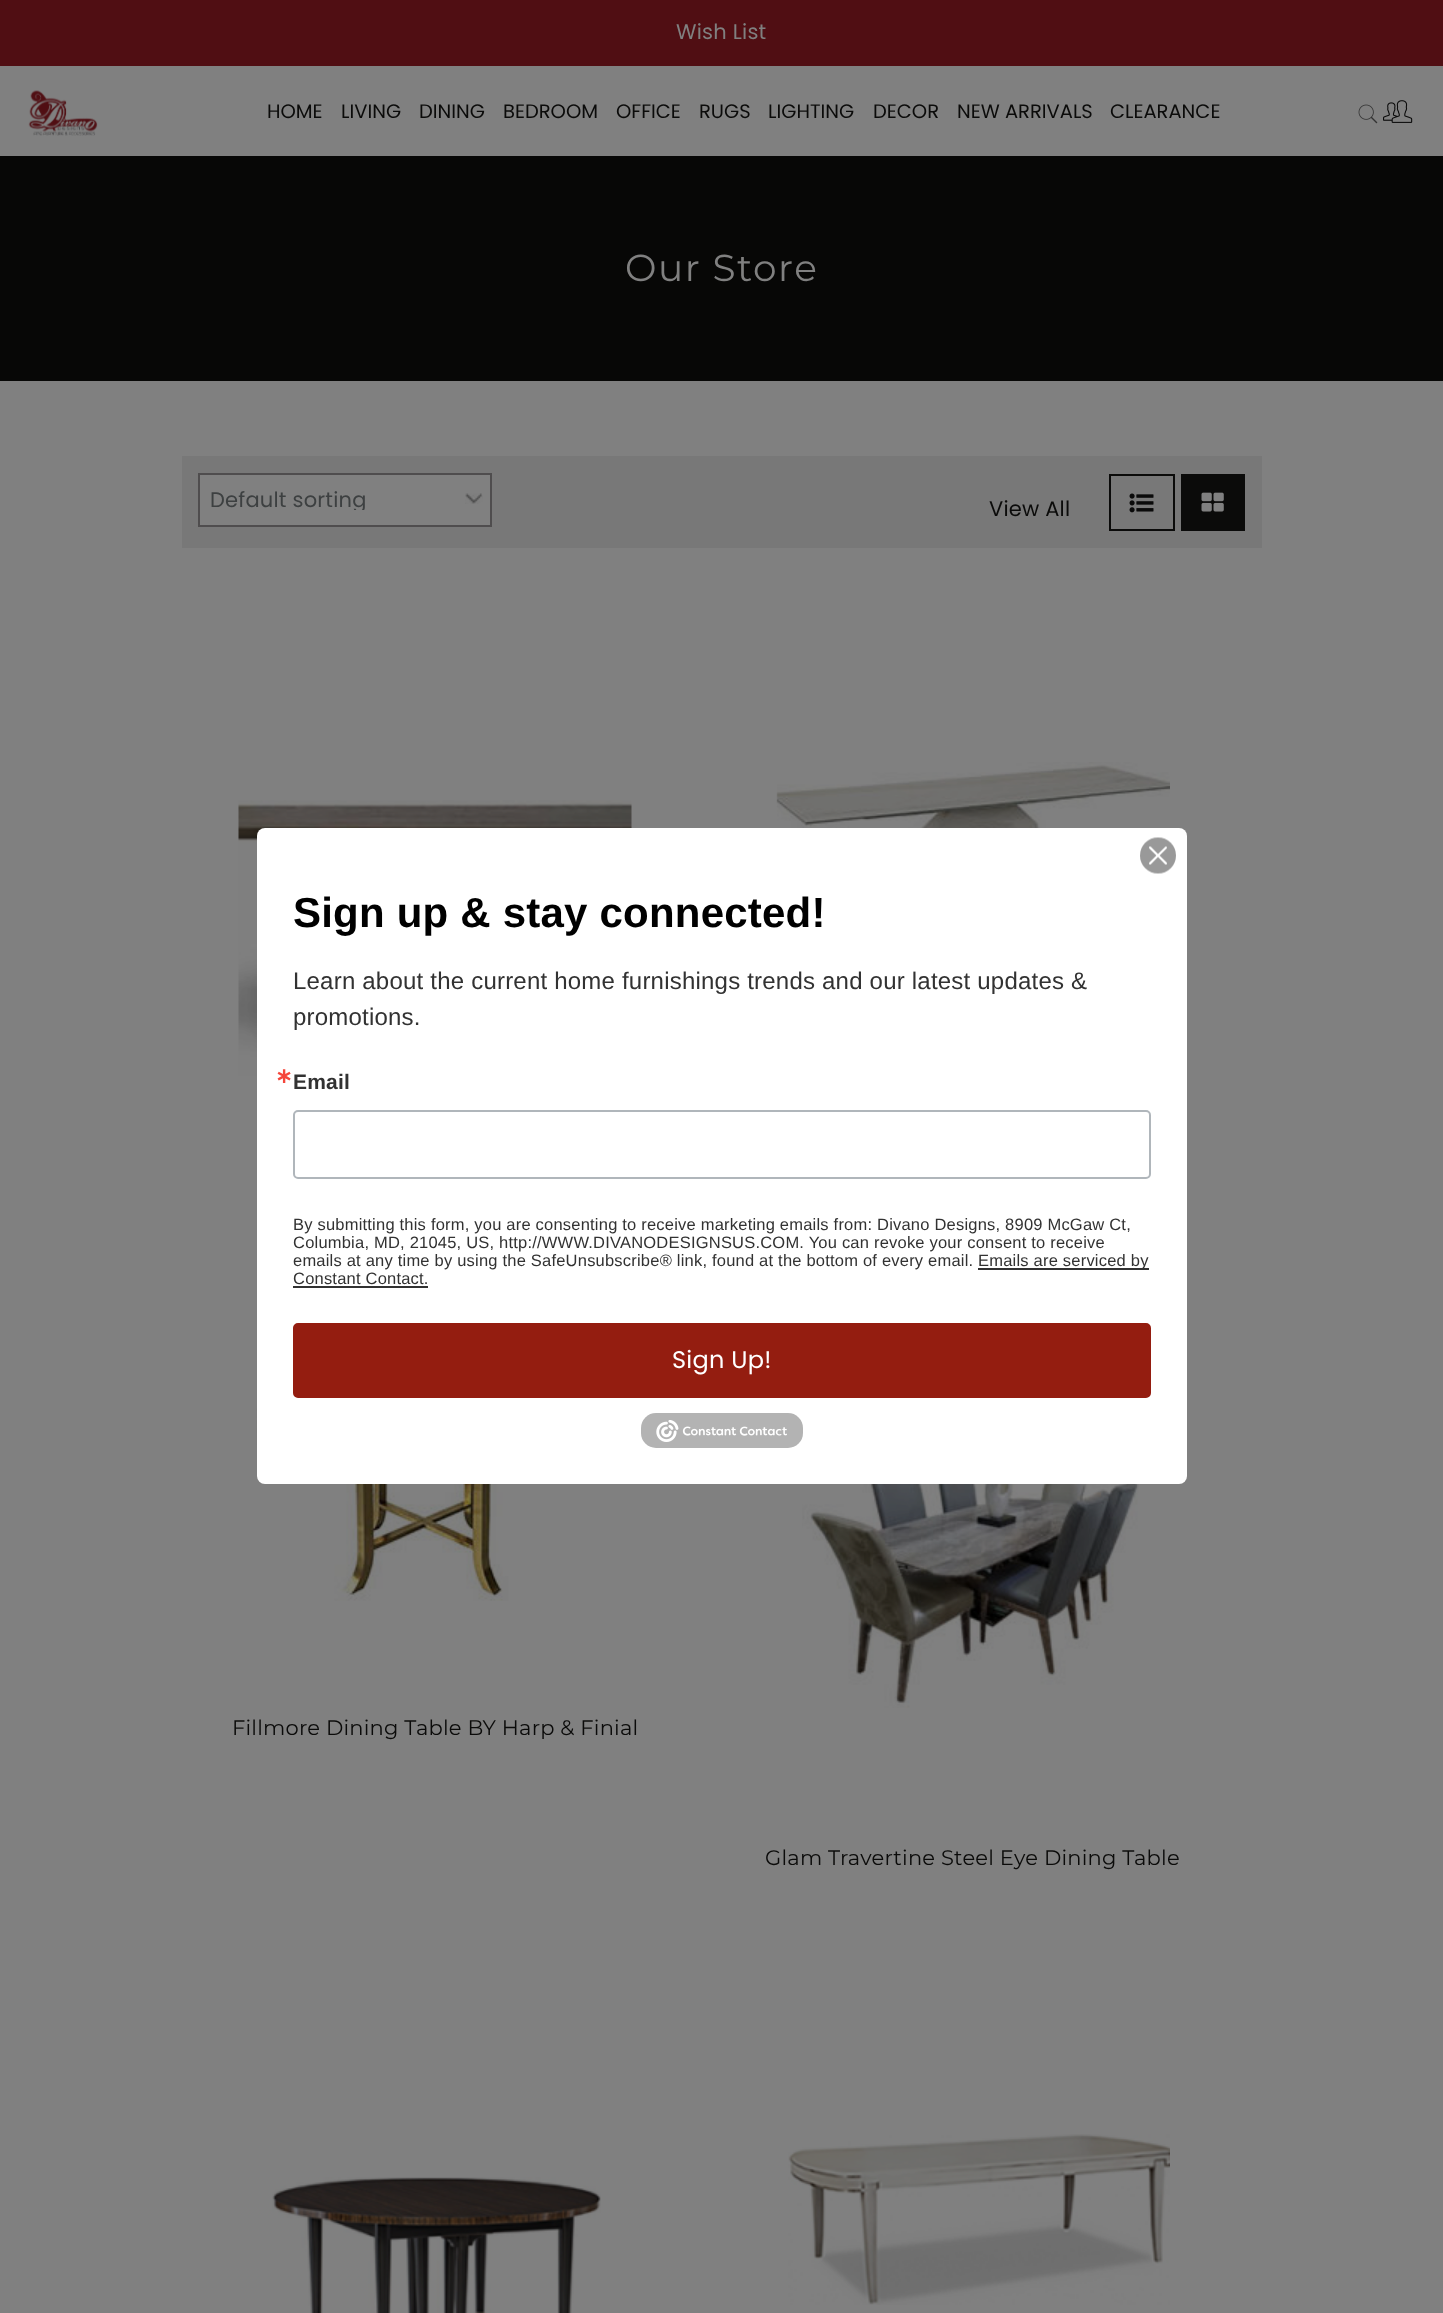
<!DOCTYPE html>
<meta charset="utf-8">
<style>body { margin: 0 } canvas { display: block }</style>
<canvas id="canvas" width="1443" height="2313"></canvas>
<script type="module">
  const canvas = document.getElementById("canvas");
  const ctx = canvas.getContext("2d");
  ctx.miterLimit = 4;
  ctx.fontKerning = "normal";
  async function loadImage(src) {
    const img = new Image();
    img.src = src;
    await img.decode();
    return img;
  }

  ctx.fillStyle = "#808080";
  ctx.fillRect(0, 0, 1443, 2313);
  ctx.fillStyle = "#500e13";
  ctx.fillRect(0, 0, 1443, 66);
  ctx.letterSpacing = "0.21px";
  ctx.font = "21px Poppins";
  ctx.fillStyle = "#808080";
  ctx.fillText("Wish List", 676, 39);
  ctx.drawImage(await loadImage("img1.png"), 28, 90, 70, 46);
  ctx.letterSpacing = "0px";
  ctx.font = "19.5px Poppins";
  ctx.fillStyle = "#0b0b0a";
  ctx.fillText("HOME", 267, 118);
  ctx.fillText("LIVING", 341, 118);
  ctx.fillText("DINING", 419, 118);
  ctx.fillText("BEDROOM", 503, 118);
  ctx.fillText("OFFICE", 616, 118);
  ctx.fillText("RUGS", 699, 118);
  ctx.fillText("LIGHTING", 768, 118);
  ctx.fillText("DECOR", 873, 118);
  ctx.fillText("NEW ARRIVALS", 957, 118);
  ctx.fillText("CLEARANCE", 1110, 118);
  ctx.drawImage(await loadImage("img2.png"), 1358, 104, 20, 20);
  ctx.drawImage(await loadImage("img3.png"), 1383, 100, 30, 23);
  ctx.fillStyle = "#070706";
  ctx.fillRect(0, 156, 1443, 225);
  ctx.letterSpacing = "1.5px";
  ctx.font = "37.5px Montserrat";
  ctx.fillStyle = "#808080";
  ctx.fillText("Our Store", 625, 281);
  ctx.fillStyle = "#787878";
  ctx.fillRect(182, 456, 1080, 92);
  ctx.fillStyle = "#808080";
  ctx.fillRect(200, 475, 290, 50);
  ctx.drawImage(await loadImage("img4.png"), 465, 493, 18, 11);
  ctx.strokeStyle = "#4f4d4e";
  ctx.lineWidth = 2;
  ctx.strokeRect(199, 474, 292, 52);
  ctx.save();
  ctx.beginPath();
  ctx.rect(210, 489, 270, 21);
  ctx.clip();
  ctx.letterSpacing = "0.21px";
  ctx.font = "21px Poppins";
  ctx.fillStyle = "#3d4041";
  ctx.fillText("Default sorting", 210, 507);
  ctx.restore();
  ctx.strokeStyle = "#0b0b0a";
  ctx.strokeRect(1110, 475, 64, 55);
  ctx.drawImage(await loadImage("img5.png"), 1129, 493, 25, 20);
  ctx.fillStyle = "#0b0b0a";
  ctx.fillRect(1181, 474, 64, 57);
  ctx.drawImage(await loadImage("img6.png"), 1201, 492, 23, 20);
  ctx.letterSpacing = "0.21px";
  ctx.font = "21px Poppins";
  ctx.fillText("View All", 989, 516);
  ctx.drawImage(await loadImage("img7.png"), 238, 800, 394, 276);
  ctx.drawImage(await loadImage("img8.png"), 776, 762, 394, 66);
  ctx.drawImage(await loadImage("img9.png"), 256, 1384, 339, 217);
  ctx.font = "21px Montserrat";
  ctx.fillText("Fillmore Dining Table BY Harp & Finial", 232, 1735);
  ctx.drawImage(await loadImage("img10.png"), 802, 1484, 337, 224);
  ctx.fillText("Glam Travertine Steel Eye Dining Table", 765, 1865);
  ctx.drawImage(await loadImage("img11.png"), 272, 2177, 329, 136);
  ctx.drawImage(await loadImage("img12.png"), 788, 2134, 382, 171);
  ctx.fillStyle = "#ffffff";
  ctx.beginPath();
  ctx.roundRect(257, 828, 930, 656, 8);
  ctx.fill();
  ctx.drawImage(await loadImage("img13.png"), 1140, 837, 36, 37);
  ctx.font = "bold 42px Liberation Sans";
  ctx.fillStyle = "#000000";
  ctx.fillText("Sign up & stay connected!", 293, 927);
  ctx.font = "24px Liberation Sans";
  ctx.fillStyle = "#323232";
  ctx.fillText("Learn about the current home furnishings trends and our latest updates &", 293, 989);
  ctx.fillText("promotions.", 293, 1025);
  ctx.font = "bold 21px DejaVu Sans";
  ctx.fillStyle = "#f5463b";
  ctx.fillText("∗", 275, 1083);
  ctx.font = "bold 21px Liberation Sans";
  ctx.fillStyle = "#323232";
  ctx.fillText("Email", 293, 1089);
  ctx.beginPath();
  ctx.roundRect(294, 1111, 856, 67, 4);
  ctx.strokeStyle = "#b0b6bb";
  ctx.stroke();
  ctx.font = "16.5px Liberation Sans";
  ctx.fillText("By submitting this form, you are consenting to receive marketing emails from: Divano Designs, 8909 McGaw Ct,", 293, 1230);
  ctx.fillText("Columbia, MD, 21045, US, http://WWW.DIVANODESIGNSUS.COM. You can revoke your consent to receive", 293, 1248);
  ctx.fillText("emails at any time by using the SafeUnsubscribe® link, found at the bottom of every email.", 293, 1266);
  ctx.fillRect(978, 1268, 171, 2);
  ctx.fillText("Emails are serviced by", 978, 1266);
  ctx.fillText("Constant Contact.", 293, 1284);
  ctx.fillRect(293, 1286, 135, 2);
  ctx.fillStyle = "#941d10";
  ctx.beginPath();
  ctx.roundRect(294, 1324, 856, 73, 4);
  ctx.fill();
  ctx.strokeStyle = "#941d10";
  ctx.stroke();
  ctx.letterSpacing = "0.25px";
  ctx.font = "24px Poppins";
  ctx.fillStyle = "#ffffff";
  ctx.fillText("Sign Up!", 672, 1368);
  ctx.fillStyle = "#b3b3b3";
  ctx.beginPath();
  ctx.roundRect(641, 1413, 162, 35, 15);
  ctx.fill();
  ctx.drawImage(await loadImage("img14.png"), 656, 1420, 131, 22);
</script>
